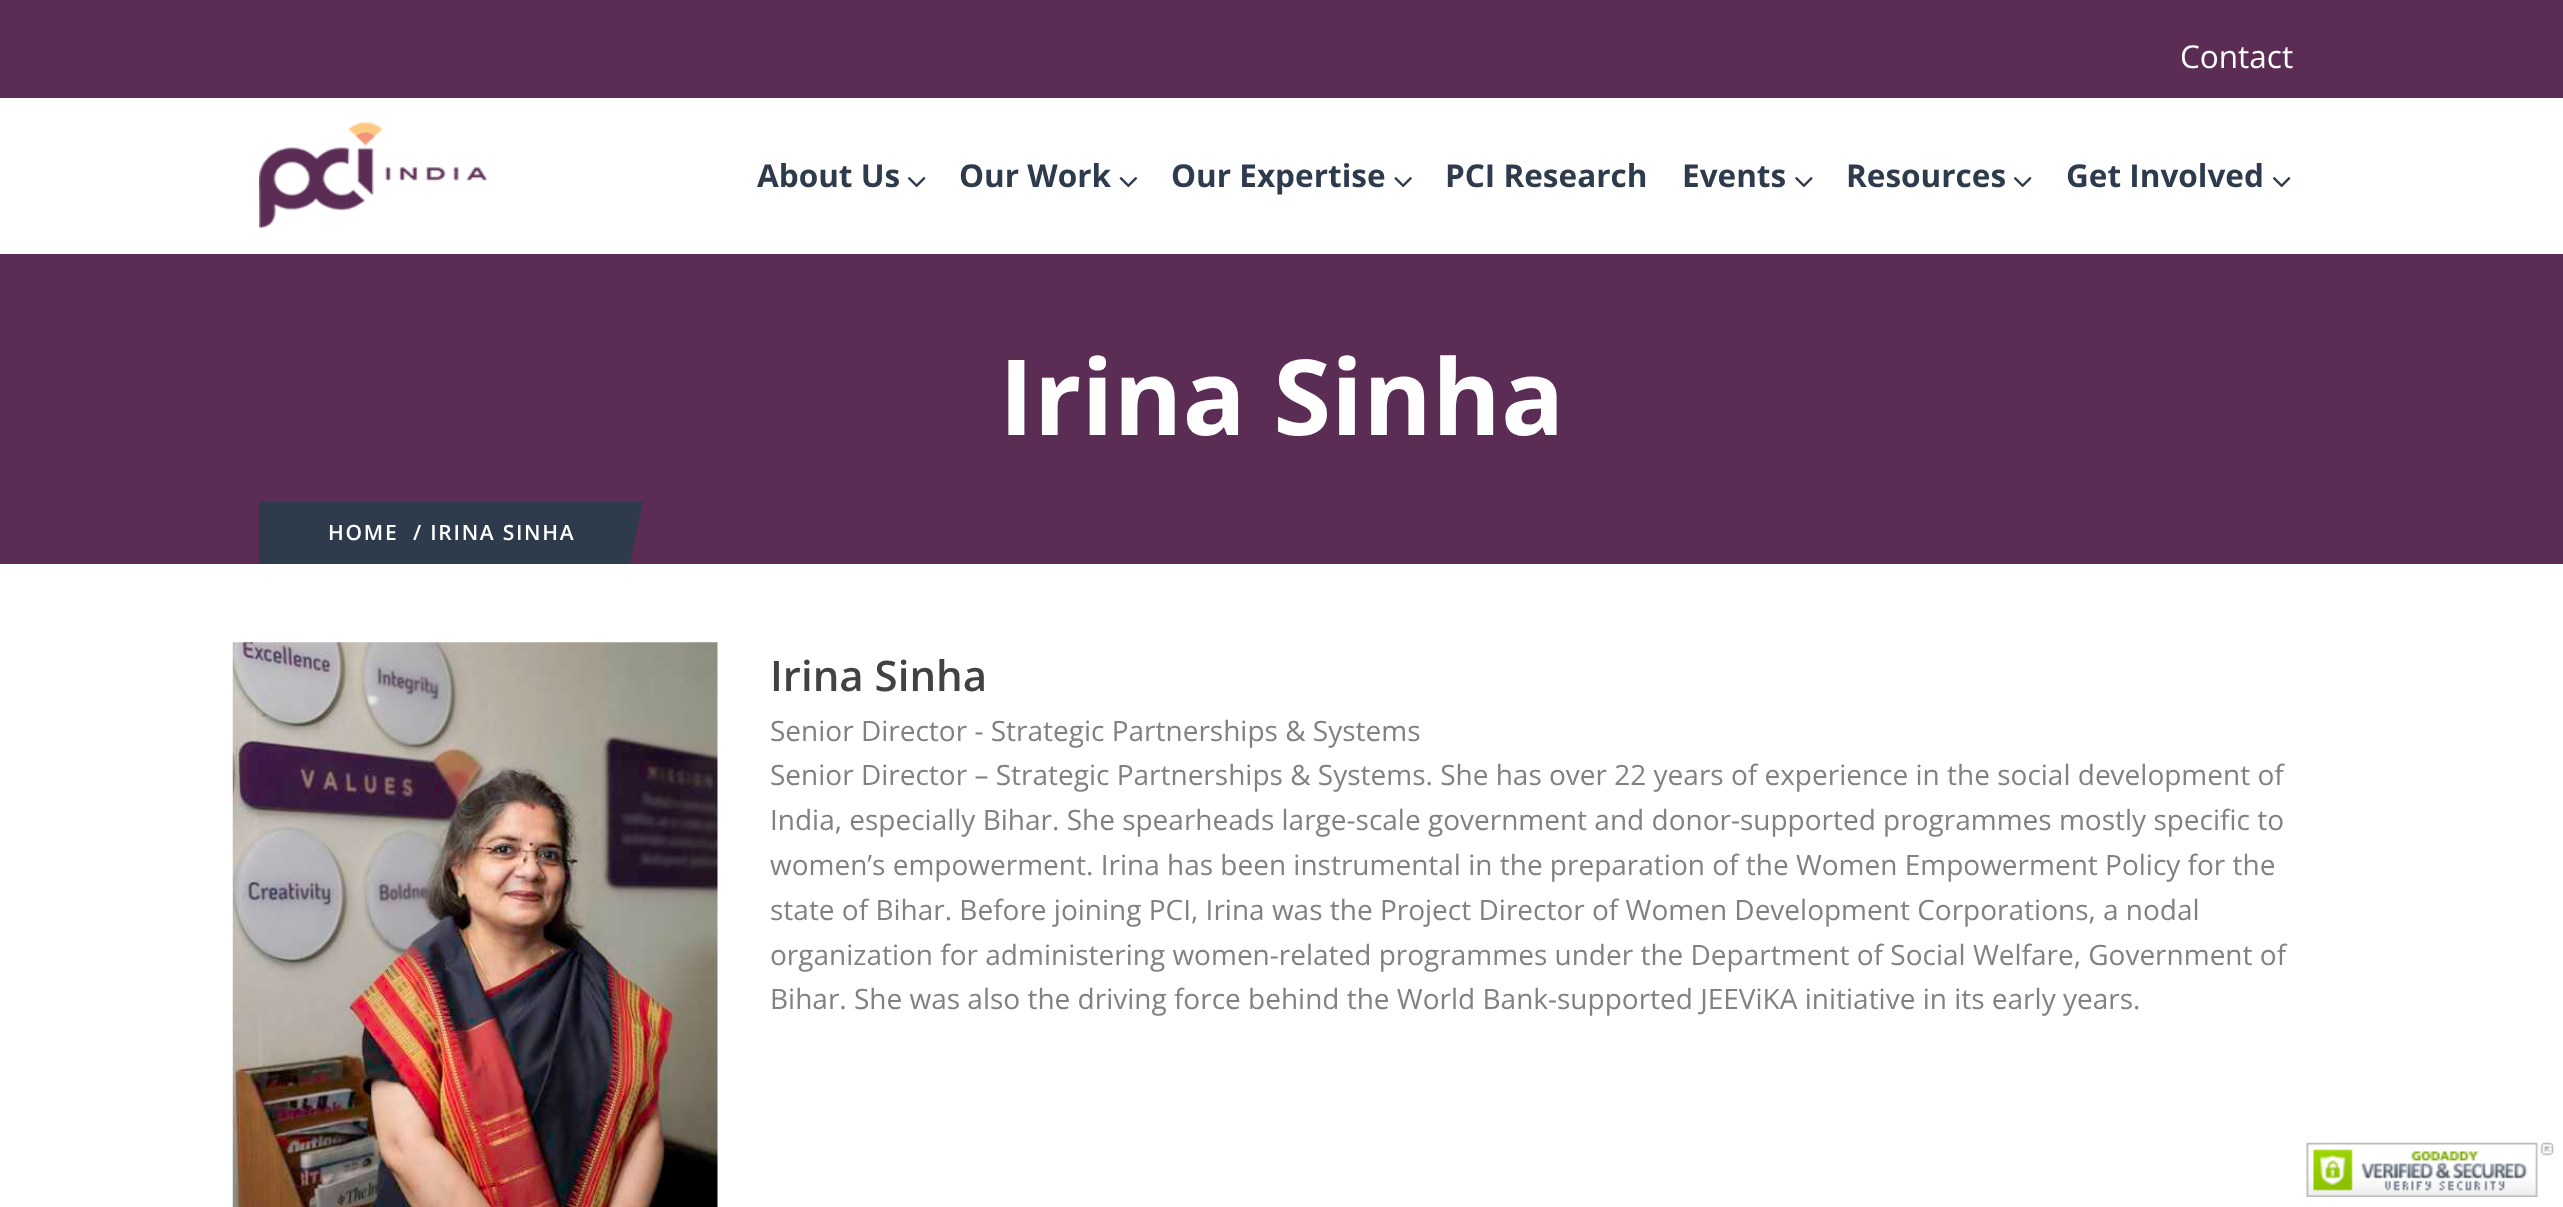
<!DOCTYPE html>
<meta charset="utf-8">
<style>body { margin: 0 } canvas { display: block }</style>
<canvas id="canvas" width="2563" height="1207"></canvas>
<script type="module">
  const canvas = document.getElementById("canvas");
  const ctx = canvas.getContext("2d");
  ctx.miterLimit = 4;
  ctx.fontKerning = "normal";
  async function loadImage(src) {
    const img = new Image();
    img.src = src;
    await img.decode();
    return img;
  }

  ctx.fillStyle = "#ffffff";
  ctx.fillRect(0, 0, 2563, 1207);
  ctx.fillStyle = "#5b2c54";
  ctx.fillRect(0, 0, 2563, 98);
  ctx.font = "31.5px Open Sans";
  ctx.fillStyle = "#ffffff";
  ctx.fillText("Contact", 2180, 68);
  ctx.drawImage(await loadImage("img1.png"), 259, 122, 228, 106);
  ctx.font = "bold 31.5px Open Sans";
  ctx.fillStyle = "#2d3b4d";
  ctx.fillText("About Us", 757, 187);
  ctx.drawImage(await loadImage("img2.png"), 907, 177, 19, 11);
  ctx.fillText("Our Work", 959, 187);
  ctx.drawImage(await loadImage("img3.png"), 1119, 177, 19, 11);
  ctx.fillText("Our Expertise", 1171, 187);
  ctx.drawImage(await loadImage("img4.png"), 1394, 177, 18, 11);
  ctx.fillText("PCI Research", 1445, 187);
  ctx.fillText("Events", 1682, 187);
  ctx.drawImage(await loadImage("img5.png"), 1795, 177, 18, 11);
  ctx.fillText("Resources", 1846, 187);
  ctx.drawImage(await loadImage("img2.png"), 2013, 177, 19, 11);
  ctx.fillText("Get Involved", 2066, 187);
  ctx.drawImage(await loadImage("img2.png"), 2272, 177, 19, 11);
  ctx.fillStyle = "#5b2c54";
  ctx.fillRect(0, 254, 2563, 310);
  ctx.font = "bold 105px Open Sans";
  ctx.fillStyle = "#ffffff";
  ctx.fillText("Irina Sinha", 999, 435);
  ctx.fillStyle = "#2d3b4d";
  ctx.fillRect(259, 502, 369, 62);
  ctx.beginPath();
  ctx.moveTo(273, 502);
  ctx.lineTo(643, 502);
  ctx.lineTo(630, 563);
  ctx.lineTo(260, 563);
  ctx.closePath();
  ctx.fill();
  ctx.letterSpacing = "1.75px";
  ctx.font = "600 21px Open Sans";
  ctx.fillStyle = "#ffffff";
  ctx.fillText("HOME", 328, 540);
  ctx.fillText("/ IRINA SINHA", 413, 540);
  ctx.drawImage(await loadImage("img6.png"), 232, 642, 486, 565);
  ctx.letterSpacing = "0px";
  ctx.font = "600 42px Open Sans";
  ctx.fillStyle = "#424242";
  ctx.fillText("Irina Sinha", 770, 691);
  ctx.font = "28px Open Sans";
  ctx.fillStyle = "#818181";
  ctx.fillText("Senior Director - Strategic Partnerships & Systems", 770, 741);
  ctx.fillText("Senior Director – Strategic Partnerships & Systems. She has over 22 years of experience in the social development of", 770, 785);
  ctx.fillText("India, especially Bihar. She spearheads large-scale government and donor-supported programmes mostly specific to", 770, 830);
  ctx.fillText("women’s empowerment. Irina has been instrumental in the preparation of the Women Empowerment Policy for the", 770, 875);
  ctx.fillText("state of Bihar. Before joining PCI, Irina was the Project Director of Women Development Corporations, a nodal", 770, 920);
  ctx.fillText("organization for administering women-related programmes under the Department of Social Welfare, Government of", 770, 965);
  ctx.fillText("Bihar. She was also the driving force behind the World Bank-supported JEEViKA initiative in its early years.", 770, 1009);
  ctx.drawImage(await loadImage("img7.png"), 2306, 1142, 248, 55);
</script>
